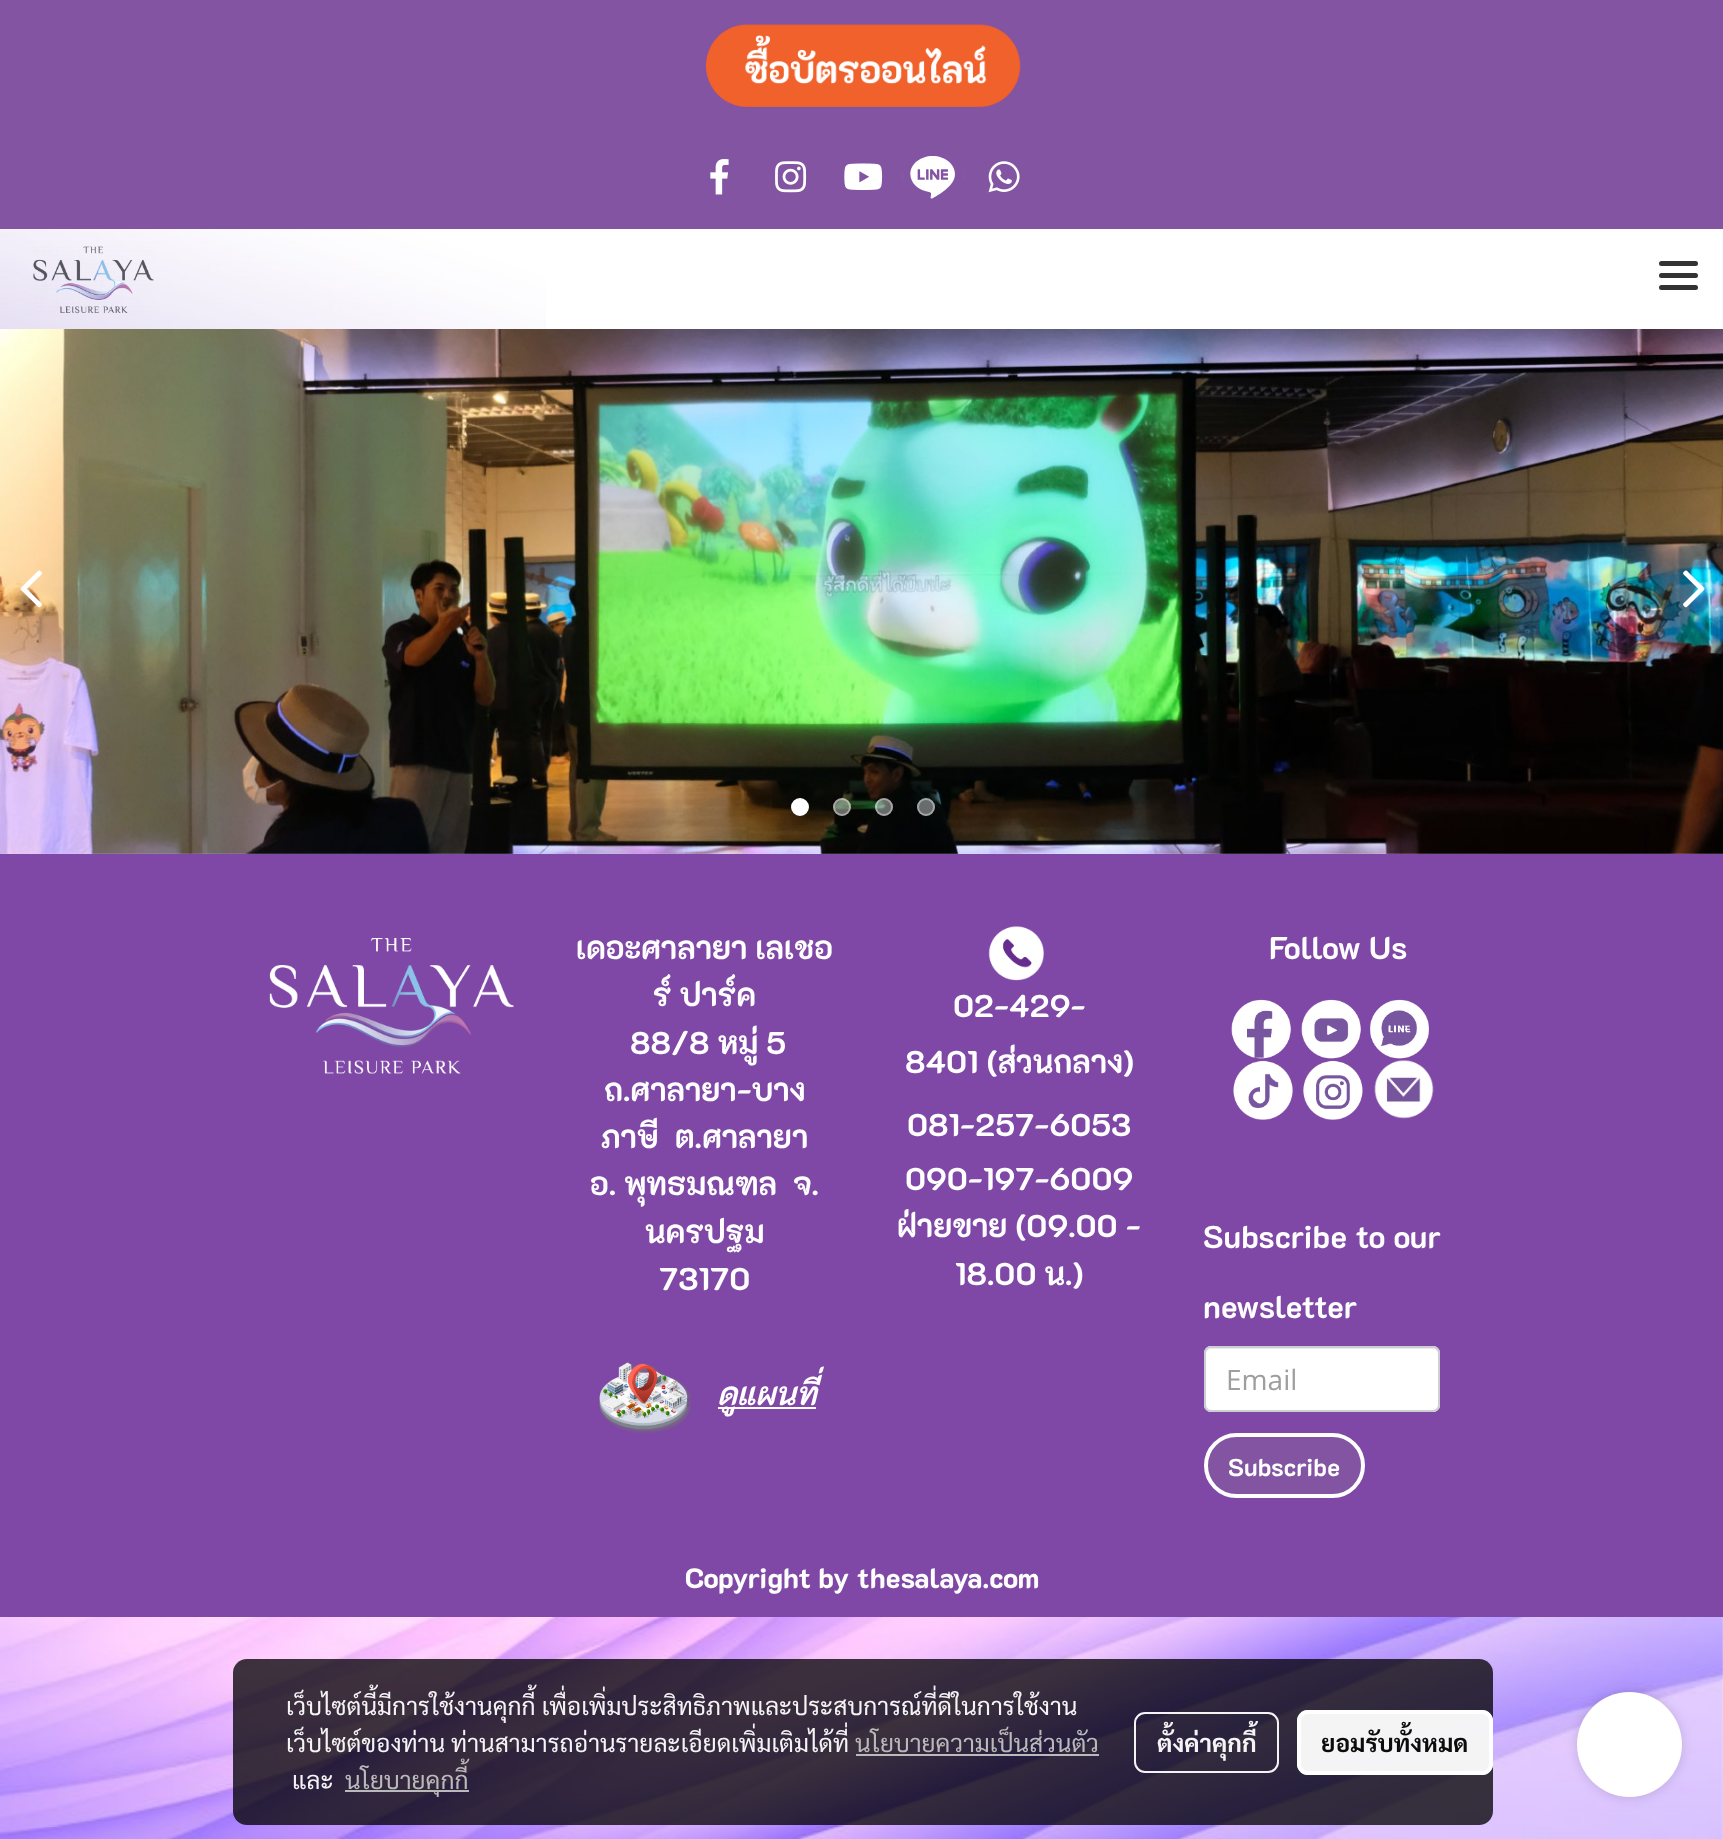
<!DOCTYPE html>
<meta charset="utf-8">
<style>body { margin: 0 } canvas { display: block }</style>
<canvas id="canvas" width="1723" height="1839"></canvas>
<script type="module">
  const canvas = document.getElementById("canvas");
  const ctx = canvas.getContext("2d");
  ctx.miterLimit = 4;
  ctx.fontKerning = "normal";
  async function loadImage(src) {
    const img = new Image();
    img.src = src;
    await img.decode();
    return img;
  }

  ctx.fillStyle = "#ffffff";
  ctx.fillRect(0, 0, 1723, 1839);
  ctx.drawImage(await loadImage("img1.png"), 0, 853, 1723, 986);
  ctx.fillStyle = "#8254a2";
  ctx.fillRect(0, 0, 1723, 229);
  ctx.drawImage(await loadImage("img2.png"), 705, 24, 316, 84);
  ctx.drawImage(await loadImage("img3.png"), 710, 159, 19, 36);
  ctx.drawImage(await loadImage("img4.png"), 775, 161, 32, 32);
  ctx.drawImage(await loadImage("img5.png"), 844, 163, 39, 28);
  ctx.drawImage(await loadImage("img6.png"), 902, 156, 62, 52);
  ctx.drawImage(await loadImage("img7.png"), 988, 161, 32, 32);
  ctx.drawImage(await loadImage("img8.png"), 0, 229, 546, 100);
  ctx.drawImage(await loadImage("img9.png"), 33, 246, 121, 68);
  ctx.fillStyle = "#333333";
  ctx.beginPath();
  ctx.roundRect(1659, 273, 39, 5, 2.5);
  ctx.fill();
  ctx.beginPath();
  ctx.roundRect(1659, 261, 39, 5, 2.5);
  ctx.fill();
  ctx.beginPath();
  ctx.roundRect(1659, 285, 39, 5, 2.5);
  ctx.fill();
  ctx.drawImage(await loadImage("img10.png"), 0, 329, 1723, 525);
  ctx.drawImage(await loadImage("img11.png"), 20, 570, 22, 38);
  ctx.drawImage(await loadImage("img12.png"), 1683, 570, 22, 38);
  ctx.fillStyle = "#ffffff";
  ctx.beginPath();
  ctx.arc(800, 807, 8, 0, Math.PI * 2);
  ctx.fill();
  ctx.strokeStyle = "#ffffff";
  ctx.lineWidth = 2;
  ctx.stroke();
  ctx.fillStyle = "rgba(255, 255, 255, 0.4)";
  ctx.beginPath();
  ctx.arc(842, 807, 9, 0, Math.PI * 2);
  ctx.fill();
  ctx.beginPath();
  ctx.arc(842, 807, 8, 0, Math.PI * 2);
  ctx.strokeStyle = "rgba(255, 255, 255, 0.4)";
  ctx.stroke();
  ctx.beginPath();
  ctx.arc(884, 807, 9, 0, Math.PI * 2);
  ctx.fill();
  ctx.beginPath();
  ctx.arc(884, 807, 8, 0, Math.PI * 2);
  ctx.stroke();
  ctx.beginPath();
  ctx.arc(926, 807, 9, 0, Math.PI * 2);
  ctx.fill();
  ctx.beginPath();
  ctx.arc(926, 807, 8, 0, Math.PI * 2);
  ctx.stroke();
  ctx.fillStyle = "#7f48a6";
  ctx.fillRect(0, 854, 1723, 763);
  ctx.drawImage(await loadImage("img13.png"), 269, 938, 245, 136);
  ctx.font = "bold 31.5px 'K2D'";
  ctx.fillStyle = "#ffffff";
  ctx.fillText("เดอะศาลายา เลเชอ", 576, 959);
  ctx.fillText("ร์ ปาร์ค", 653, 1006);
  ctx.fillText("88/8 หมู่ 5", 630, 1054);
  ctx.fillText("ถ.ศาลายา-บาง", 604, 1101);
  ctx.fillText("ภาษี  ต.ศาลายา", 601, 1148);
  ctx.fillText("อ. พุทธมณฑล  จ.", 590, 1195);
  ctx.fillText("นครปฐม", 645, 1243);
  ctx.fillText("73170", 659, 1290);
  ctx.drawImage(await loadImage("img14.png"), 598, 1362, 94, 72);
  ctx.fillRect(718, 1407, 98, 2);
  ctx.font = "italic bold 31.5px 'K2D'";
  ctx.fillText("ดูแผนที่", 717, 1405);
  ctx.drawImage(await loadImage("img15.png"), 988, 926, 56, 55);
  ctx.font = "bold 31.5px 'K2D'";
  ctx.fillText("02-429-", 953, 1017);
  ctx.fillText("8401 (ส่วนกลาง)", 905, 1073);
  ctx.fillText("081-257-6053", 907, 1136);
  ctx.fillText("090-197-6009", 905, 1190);
  ctx.fillText("ฝ่ายขาย (09.00 -", 897, 1237);
  ctx.fillText("18.00 น.)", 955, 1285);
  ctx.fillText("Follow Us", 1269, 959);
  ctx.drawImage(await loadImage("img16.png"), 1231, 999, 60, 60);
  ctx.drawImage(await loadImage("img17.png"), 1301, 999, 60, 60);
  ctx.drawImage(await loadImage("img18.png"), 1370, 999, 59, 60);
  ctx.drawImage(await loadImage("img19.png"), 1233, 1060, 60, 60);
  ctx.drawImage(await loadImage("img20.png"), 1303, 1060, 60, 60);
  ctx.drawImage(await loadImage("img21.png"), 1374, 1060, 60, 59);
  ctx.fillText("Subscribe to our", 1203, 1248);
  ctx.fillText("newsletter", 1203, 1318);
  ctx.beginPath();
  ctx.roundRect(1204, 1346, 236, 66, 7);
  ctx.fill();
  ctx.fillStyle = "#ececec";
  ctx.beginPath();
  ctx.moveTo(1211, 1349);
  ctx.lineTo(1433, 1349);
  ctx.bezierCurveTo(1436, 1349, 1438, 1352, 1438, 1354);
  ctx.lineTo(1438, 1407);
  ctx.lineTo(1437, 1410);
  ctx.bezierCurveTo(1438, 1409, 1439, 1407, 1439, 1406);
  ctx.lineTo(1439, 1353);
  ctx.bezierCurveTo(1439, 1350, 1437, 1348, 1434, 1348);
  ctx.lineTo(1211, 1348);
  ctx.bezierCurveTo(1208, 1348, 1206, 1350, 1206, 1353);
  ctx.lineTo(1206, 1354);
  ctx.bezierCurveTo(1206, 1352, 1208, 1349, 1211, 1349);
  ctx.closePath();
  ctx.fill();
  ctx.beginPath();
  ctx.roundRect(1205, 1347, 234, 64, 6);
  ctx.strokeStyle = "#cdced2";
  ctx.stroke();
  ctx.font = "28px Open Sans";
  ctx.fillStyle = "#9e9e9e";
  ctx.fillText("Email", 1226, 1390);
  ctx.fillStyle = "#8254a2";
  ctx.beginPath();
  ctx.roundRect(1206, 1435, 157, 61, 30.5);
  ctx.fill();
  ctx.strokeStyle = "#ffffff";
  ctx.lineWidth = 4;
  ctx.stroke();
  ctx.font = "bold 24.5px 'K2D'";
  ctx.fillStyle = "#ffffff";
  ctx.fillText("Subscribe", 1228, 1476);
  ctx.font = "800 28px 'K2D'";
  ctx.fillText("Copyright by thesalaya.com", 685, 1588);
  ctx.fillStyle = "rgba(0, 0, 0, 0.76)";
  ctx.beginPath();
  ctx.roundRect(233, 1659, 1260, 166, 14);
  ctx.fill();
  ctx.font = "24.5px Sarabun";
  ctx.fillStyle = "#f5f4f5";
  ctx.fillText("เว็บไซต์นี้มีการใช้งานคุกกี้ เพื่อเพิ่มประสิทธิภาพและประสบการณ์ที่ดีในการใช้งาน", 286, 1715);
  ctx.fillText("เว็บไซต์ของท่าน ท่านสามารถอ่านรายละเอียดเพิ่มเติมได้ที่", 286, 1752);
  ctx.fillStyle = "#bbbabb";
  ctx.fillText("นโยบายความเป็นส่วนตัว", 855, 1752);
  ctx.fillStyle = "rgba(194, 194, 194, 0.95)";
  ctx.fillRect(856, 1754, 243, 2);
  ctx.fillStyle = "#f5f4f5";
  ctx.fillText("และ", 292, 1789);
  ctx.fillStyle = "rgba(194, 194, 194, 0.95)";
  ctx.fillRect(345, 1790, 124, 2);
  ctx.fillStyle = "#bbbabb";
  ctx.fillText("นโยบายคุกกี้", 345, 1789);
  ctx.beginPath();
  ctx.roundRect(1135, 1713, 143, 59, 10);
  ctx.strokeStyle = "rgba(255, 255, 255, 0.95)";
  ctx.lineWidth = 2;
  ctx.stroke();
  ctx.font = "bold 24.5px Sarabun";
  ctx.fillStyle = "#f5f4f5";
  ctx.fillText("ตั้งค่าคุกกี้", 1157, 1752);
  ctx.fillStyle = "rgba(255, 255, 255, 0.95)";
  ctx.beginPath();
  ctx.roundRect(1297, 1710, 196, 65, 11);
  ctx.fill();
  ctx.beginPath();
  ctx.roundRect(1299, 1712, 192, 61, 9);
  ctx.lineWidth = 4;
  ctx.stroke();
  ctx.fillStyle = "#0c0c0c";
  ctx.fillText("ยอมรับทั้งหมด", 1321, 1752);
  ctx.fillStyle = "rgba(0, 0, 0, 0.14)";
  ctx.filter = "blur(6px)";
  ctx.beginPath();
  ctx.roundRect(1577, 1692, 105, 105, 52.5);
  ctx.fill();
  ctx.filter = "none";
  ctx.fillStyle = "#ffffff";
  ctx.beginPath();
  ctx.arc(1629.5, 1744.5, 52.5, 0, Math.PI * 2);
  ctx.fill();
</script>
